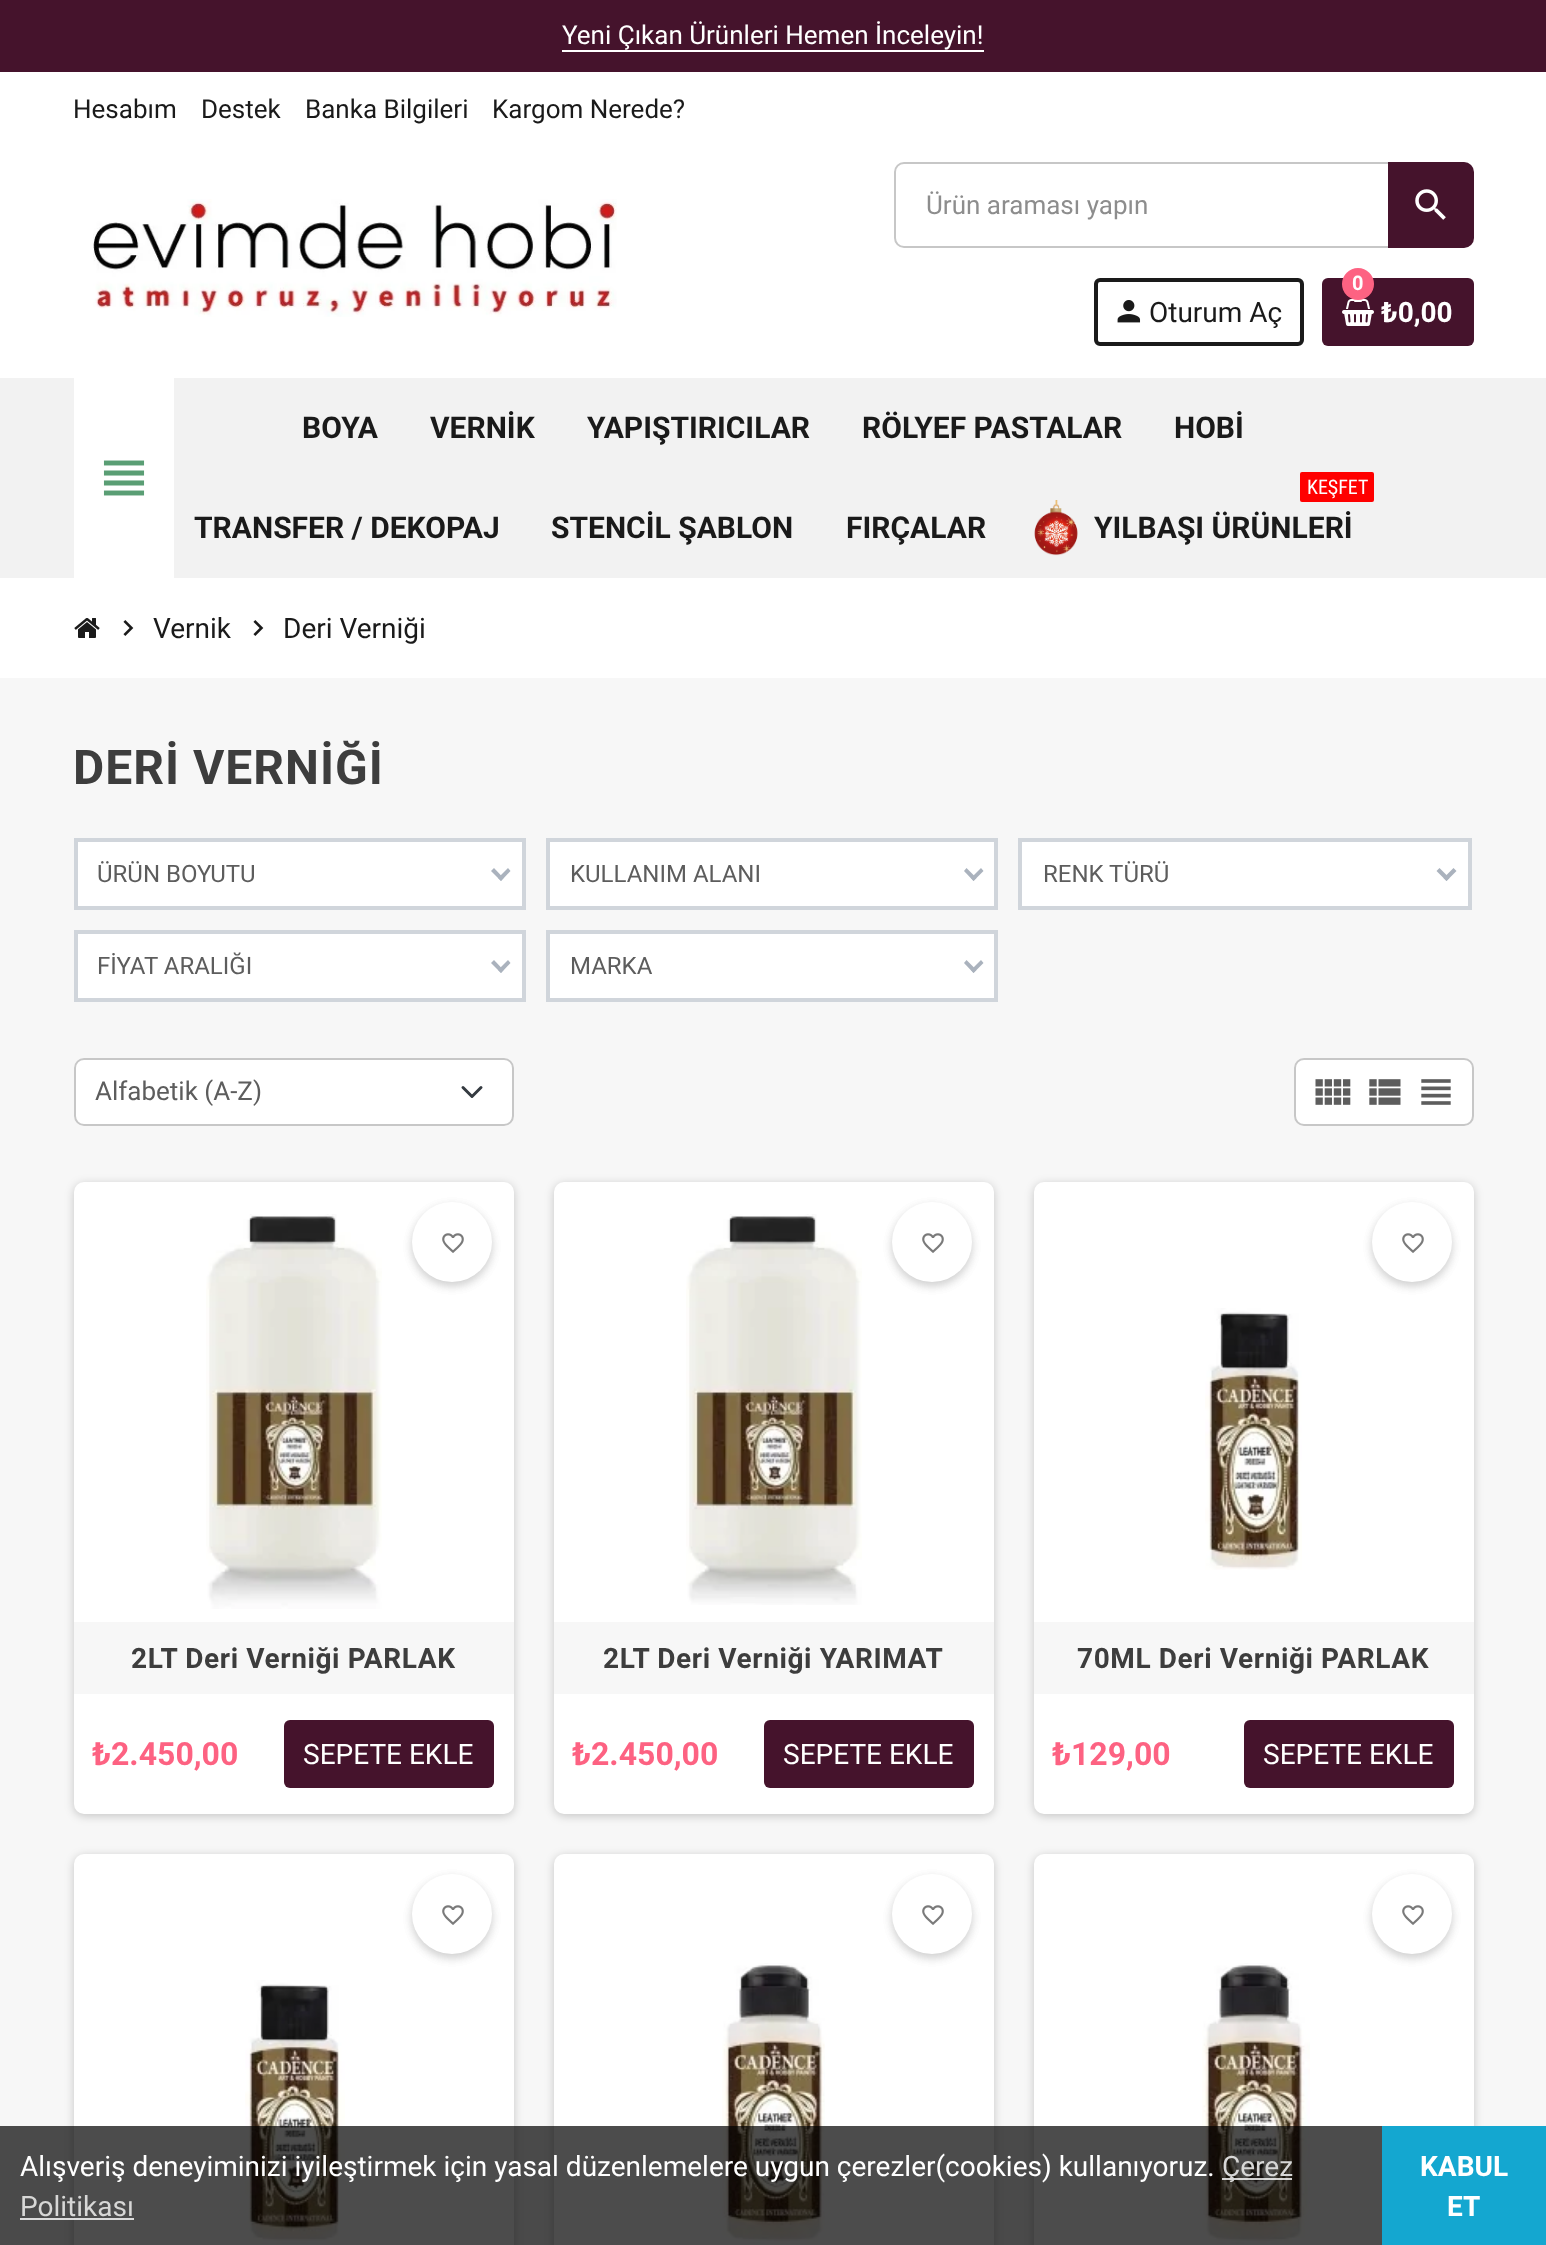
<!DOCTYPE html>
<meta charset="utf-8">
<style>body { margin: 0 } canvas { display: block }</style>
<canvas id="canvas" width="1546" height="2245"></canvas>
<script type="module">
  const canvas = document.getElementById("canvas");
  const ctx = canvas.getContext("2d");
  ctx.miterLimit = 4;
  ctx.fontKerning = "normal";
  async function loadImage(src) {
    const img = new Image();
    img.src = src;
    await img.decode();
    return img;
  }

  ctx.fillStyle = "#ffffff";
  ctx.fillRect(0, 0, 1546, 2245);
  ctx.fillStyle = "#45132c";
  ctx.fillRect(0, 0, 1546, 72);
  ctx.font = "26px Roboto";
  ctx.fillStyle = "#ffffff";
  ctx.fillText("Yeni Çıkan Ürünleri Hemen İnceleyin!", 562, 44);
  ctx.fillRect(562, 50, 422, 2);
  ctx.fillStyle = "#1a1a1a";
  ctx.fillText("Hesabım", 73, 118);
  ctx.fillText("Destek", 201, 118);
  ctx.fillText("Banka Bilgileri", 305, 118);
  ctx.fillText("Kargom Nerede?", 492, 118);
  ctx.drawImage(await loadImage("img1.png"), 93, 199, 524, 118);
  ctx.beginPath();
  ctx.roundRect(895, 163, 576, 84, 9);
  ctx.strokeStyle = "#c7c7c7";
  ctx.lineWidth = 2;
  ctx.stroke();
  ctx.fillStyle = "#8d8d8d";
  ctx.fillText("Ürün araması yapın", 926, 214);
  ctx.fillStyle = "#45132c";
  ctx.beginPath();
  ctx.roundRect(1388, 162, 86, 86, [0, 10, 10, 0]);
  ctx.fill();
  ctx.drawImage(await loadImage("img2.png"), 1415, 189, 31, 31);
  ctx.beginPath();
  ctx.roundRect(1096, 280, 206, 64, 4);
  ctx.strokeStyle = "#1a1a1a";
  ctx.lineWidth = 4;
  ctx.stroke();
  ctx.drawImage(await loadImage("img3.png"), 1117, 300, 24, 23);
  ctx.font = "28px Roboto";
  ctx.fillStyle = "#1a1a1a";
  ctx.fillText("Oturum Aç", 1149, 322);
  ctx.fillStyle = "#45132c";
  ctx.beginPath();
  ctx.roundRect(1322, 278, 152, 68, 6);
  ctx.fill();
  ctx.drawImage(await loadImage("img4.png"), 1342, 299, 32, 27);
  ctx.fillStyle = "#fd6282";
  ctx.beginPath();
  ctx.arc(1358, 284, 16, 0, Math.PI * 2);
  ctx.fill();
  ctx.font = "bold 20px 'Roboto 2'";
  ctx.fillStyle = "#ffffff";
  ctx.fillText("0", 1352, 290);
  ctx.font = "bold 28px 'Roboto 2'";
  ctx.fillText("₺0,00", 1381, 322);
  ctx.fillStyle = "#f2f2f2";
  ctx.fillRect(0, 378, 1546, 200);
  ctx.fillStyle = "#ffffff";
  ctx.fillRect(74, 378, 100, 200);
  ctx.drawImage(await loadImage("img5.png"), 103, 460, 42, 36);
  ctx.font = "bold 30px Roboto";
  ctx.fillStyle = "#1a1a1a";
  ctx.fillText("BOYA", 302, 438);
  ctx.fillText("VERNİK", 430, 438);
  ctx.fillText("YAPIŞTIRICILAR", 587, 438);
  ctx.fillText("RÖLYEF PASTALAR", 862, 438);
  ctx.fillText("HOBİ", 1174, 438);
  ctx.fillText("TRANSFER / DEKOPAJ", 194, 538);
  ctx.fillText("STENCİL ŞABLON", 551, 538);
  ctx.fillText("FIRÇALAR", 846, 538);
  ctx.fillStyle = "#ff0000";
  ctx.beginPath();
  ctx.roundRect(1300, 472, 74, 30, 2);
  ctx.fill();
  ctx.font = "20px Roboto Condensed";
  ctx.fillStyle = "#ffffff";
  ctx.fillText("KEŞFET", 1307, 494);
  ctx.drawImage(await loadImage("img6.png"), 1034, 500, 44, 56);
  ctx.font = "bold 30px Roboto";
  ctx.fillStyle = "#1a1a1a";
  ctx.fillText("YILBAŞI ÜRÜNLERİ", 1094, 538);
  ctx.fillStyle = "#f7f7f7";
  ctx.fillRect(0, 678, 1546, 1567);
  ctx.drawImage(await loadImage("img7.png"), 74, 618, 26, 20);
  ctx.drawImage(await loadImage("img8.png"), 123, 620, 11, 16);
  ctx.font = "28px Roboto";
  ctx.fillStyle = "#1a1a1a";
  ctx.fillText("Vernik", 153, 638);
  ctx.drawImage(await loadImage("img8.png"), 253, 620, 11, 16);
  ctx.fillText("Deri Verniği", 283, 638);
  ctx.letterSpacing = "1px";
  ctx.font = "bold 48px Roboto";
  ctx.fillStyle = "#3d3d3d";
  ctx.fillText("DERİ VERNİĞİ", 73, 784);
  ctx.fillStyle = "#ffffff";
  ctx.beginPath();
  ctx.rect(76, 840, 448, 68);
  ctx.fill();
  ctx.strokeStyle = "#d0d5db";
  ctx.stroke();
  ctx.letterSpacing = "0px";
  ctx.font = "24px Roboto";
  ctx.fillStyle = "#5d5d5d";
  ctx.fillText("ÜRÜN BOYUTU", 97, 882);
  ctx.fillStyle = "#aab2bd";
  ctx.beginPath();
  ctx.moveTo(508, 868);
  ctx.lineTo(510.5, 871);
  ctx.lineTo(501, 881);
  ctx.lineTo(498, 878);
  ctx.closePath();
  ctx.fill();
  ctx.beginPath();
  ctx.moveTo(494, 868);
  ctx.lineTo(503.5, 878);
  ctx.lineTo(501, 881);
  ctx.lineTo(491, 871);
  ctx.closePath();
  ctx.fill();
  ctx.fillStyle = "#ffffff";
  ctx.beginPath();
  ctx.rect(548, 840, 448, 68);
  ctx.fill();
  ctx.stroke();
  ctx.fillStyle = "#5d5d5d";
  ctx.fillText("KULLANIM ALANI", 570, 882);
  ctx.fillStyle = "#aab2bd";
  ctx.beginPath();
  ctx.moveTo(981, 868);
  ctx.lineTo(983.5, 871);
  ctx.lineTo(973.5, 881);
  ctx.lineTo(971, 878);
  ctx.closePath();
  ctx.fill();
  ctx.beginPath();
  ctx.moveTo(966.5, 868);
  ctx.lineTo(976.5, 878);
  ctx.lineTo(973.5, 881);
  ctx.lineTo(964, 871);
  ctx.closePath();
  ctx.fill();
  ctx.fillStyle = "#ffffff";
  ctx.beginPath();
  ctx.rect(1020, 840, 450, 68);
  ctx.fill();
  ctx.stroke();
  ctx.fillStyle = "#5d5d5d";
  ctx.fillText("RENK TÜRÜ", 1043, 882);
  ctx.fillStyle = "#aab2bd";
  ctx.beginPath();
  ctx.moveTo(1453.5, 868);
  ctx.lineTo(1456.5, 871);
  ctx.lineTo(1446.5, 881);
  ctx.lineTo(1443.5, 878);
  ctx.closePath();
  ctx.fill();
  ctx.beginPath();
  ctx.moveTo(1439.5, 868);
  ctx.lineTo(1449.5, 878);
  ctx.lineTo(1446.5, 881);
  ctx.lineTo(1436.5, 871);
  ctx.closePath();
  ctx.fill();
  ctx.fillStyle = "#ffffff";
  ctx.beginPath();
  ctx.rect(76, 932, 448, 68);
  ctx.fill();
  ctx.stroke();
  ctx.fillStyle = "#5d5d5d";
  ctx.fillText("FİYAT ARALIĞI", 97, 974);
  ctx.fillStyle = "#aab2bd";
  ctx.beginPath();
  ctx.moveTo(508, 960);
  ctx.lineTo(510.5, 963);
  ctx.lineTo(501, 973);
  ctx.lineTo(498, 970);
  ctx.closePath();
  ctx.fill();
  ctx.beginPath();
  ctx.moveTo(494, 960);
  ctx.lineTo(503.5, 970);
  ctx.lineTo(501, 973);
  ctx.lineTo(491, 963);
  ctx.closePath();
  ctx.fill();
  ctx.fillStyle = "#ffffff";
  ctx.beginPath();
  ctx.rect(548, 932, 448, 68);
  ctx.fill();
  ctx.stroke();
  ctx.fillStyle = "#5d5d5d";
  ctx.fillText("MARKA", 570, 974);
  ctx.fillStyle = "#aab2bd";
  ctx.beginPath();
  ctx.moveTo(981, 960);
  ctx.lineTo(983.5, 963);
  ctx.lineTo(973.5, 973);
  ctx.lineTo(971, 970);
  ctx.closePath();
  ctx.fill();
  ctx.beginPath();
  ctx.moveTo(966.5, 960);
  ctx.lineTo(976.5, 970);
  ctx.lineTo(973.5, 973);
  ctx.lineTo(964, 963);
  ctx.closePath();
  ctx.fill();
  ctx.fillStyle = "#ffffff";
  ctx.beginPath();
  ctx.roundRect(74, 1058, 440, 68, 10);
  ctx.fill();
  ctx.beginPath();
  ctx.moveTo(463, 1087.5);
  ctx.lineTo(472, 1096.5);
  ctx.lineTo(481, 1087.5);
  ctx.strokeStyle = "#343a40";
  ctx.lineWidth = 3;
  ctx.lineCap = "round";
  ctx.lineJoin = "round";
  ctx.stroke();
  ctx.beginPath();
  ctx.roundRect(75, 1059, 438, 66, 9);
  ctx.strokeStyle = "#c7c7c7";
  ctx.lineWidth = 2;
  ctx.lineJoin = "miter";
  ctx.stroke();
  ctx.font = "26px Roboto";
  ctx.fillStyle = "#5d5d5d";
  ctx.fillText("Alfabetik (A-Z)", 95, 1100);
  ctx.fillStyle = "#ffffff";
  ctx.beginPath();
  ctx.roundRect(1295, 1059, 178, 66, 9);
  ctx.fill();
  ctx.stroke();
  ctx.drawImage(await loadImage("img9.png"), 1315, 1079, 36, 26);
  ctx.drawImage(await loadImage("img10.png"), 1369, 1079, 32, 26);
  ctx.drawImage(await loadImage("img11.png"), 1421, 1079, 30, 26);
  ctx.fillStyle = "rgba(0, 0, 0, 0.2)";
  ctx.filter = "blur(5px)";
  ctx.beginPath();
  ctx.roundRect(74, 1184, 440, 632, 10);
  ctx.fill();
  ctx.filter = "none";
  ctx.fillStyle = "#ffffff";
  ctx.beginPath();
  ctx.roundRect(74, 1182, 440, 632, 10);
  ctx.fill();
  ctx.fillStyle = "rgba(0, 0, 0, 0.1)";
  ctx.filter = "blur(5px)";
  ctx.beginPath();
  ctx.roundRect(412, 1206, 80, 80, 40);
  ctx.fill();
  ctx.filter = "none";
  ctx.drawImage(await loadImage("img12.png"), 206, 1214, 176, 395);
  ctx.filter = "blur(5px)";
  ctx.beginPath();
  ctx.roundRect(412, 1206, 80, 80, 40);
  ctx.fill();
  ctx.filter = "none";
  ctx.fillStyle = "#ffffff";
  ctx.beginPath();
  ctx.arc(452, 1242, 40, 0, Math.PI * 2);
  ctx.fill();
  ctx.drawImage(await loadImage("img13.png"), 442, 1233, 22, 20);
  ctx.fillStyle = "#f7f7f7";
  ctx.fillRect(74, 1622, 440, 72);
  ctx.letterSpacing = "0.6px";
  ctx.font = "bold 28px 'Roboto 2'";
  ctx.fillStyle = "#3d3d3d";
  ctx.fillText("2LT Deri Verniği PARLAK", 131, 1668);
  ctx.letterSpacing = "0px";
  ctx.font = "bold 32px 'Roboto 2'";
  ctx.fillStyle = "#fd6282";
  ctx.fillText("₺2.450,00", 92, 1765);
  ctx.fillStyle = "#45132c";
  ctx.beginPath();
  ctx.roundRect(284, 1720, 210, 68, 6);
  ctx.fill();
  ctx.font = "28px Roboto";
  ctx.fillStyle = "#ffffff";
  ctx.fillText("SEPETE EKLE", 303, 1764);
  ctx.fillStyle = "rgba(0, 0, 0, 0.2)";
  ctx.filter = "blur(5px)";
  ctx.beginPath();
  ctx.roundRect(554, 1184, 440, 632, 10);
  ctx.fill();
  ctx.filter = "none";
  ctx.fillStyle = "#ffffff";
  ctx.beginPath();
  ctx.roundRect(554, 1182, 440, 632, 10);
  ctx.fill();
  ctx.fillStyle = "rgba(0, 0, 0, 0.1)";
  ctx.filter = "blur(5px)";
  ctx.beginPath();
  ctx.roundRect(892, 1206, 80, 80, 40);
  ctx.fill();
  ctx.filter = "none";
  ctx.drawImage(await loadImage("img14.png"), 686, 1214, 176, 391);
  ctx.filter = "blur(5px)";
  ctx.beginPath();
  ctx.roundRect(892, 1206, 80, 80, 40);
  ctx.fill();
  ctx.filter = "none";
  ctx.fillStyle = "#ffffff";
  ctx.beginPath();
  ctx.arc(932, 1242, 40, 0, Math.PI * 2);
  ctx.fill();
  ctx.drawImage(await loadImage("img13.png"), 922, 1233, 22, 20);
  ctx.fillStyle = "#f7f7f7";
  ctx.fillRect(554, 1622, 440, 72);
  ctx.letterSpacing = "0.6px";
  ctx.font = "bold 28px 'Roboto 2'";
  ctx.fillStyle = "#3d3d3d";
  ctx.fillText("2LT Deri Verniği YARIMAT", 603, 1668);
  ctx.letterSpacing = "0px";
  ctx.font = "bold 32px 'Roboto 2'";
  ctx.fillStyle = "#fd6282";
  ctx.fillText("₺2.450,00", 572, 1765);
  ctx.fillStyle = "#45132c";
  ctx.beginPath();
  ctx.roundRect(764, 1720, 210, 68, 6);
  ctx.fill();
  ctx.font = "28px Roboto";
  ctx.fillStyle = "#ffffff";
  ctx.fillText("SEPETE EKLE", 783, 1764);
  ctx.fillStyle = "rgba(0, 0, 0, 0.2)";
  ctx.filter = "blur(5px)";
  ctx.beginPath();
  ctx.roundRect(1034, 1184, 440, 632, 10);
  ctx.fill();
  ctx.filter = "none";
  ctx.fillStyle = "#ffffff";
  ctx.beginPath();
  ctx.roundRect(1034, 1182, 440, 632, 10);
  ctx.fill();
  ctx.fillStyle = "rgba(0, 0, 0, 0.1)";
  ctx.filter = "blur(5px)";
  ctx.beginPath();
  ctx.roundRect(1372, 1206, 80, 80, 40);
  ctx.fill();
  ctx.filter = "none";
  ctx.filter = "blur(5px)";
  ctx.beginPath();
  ctx.roundRect(1372, 1206, 80, 80, 40);
  ctx.fill();
  ctx.filter = "none";
  ctx.fillStyle = "#ffffff";
  ctx.beginPath();
  ctx.arc(1412, 1242, 40, 0, Math.PI * 2);
  ctx.fill();
  ctx.drawImage(await loadImage("img13.png"), 1402, 1233, 22, 20);
  ctx.drawImage(await loadImage("img15.png"), 1205, 1308, 97, 262);
  ctx.fillStyle = "#f7f7f7";
  ctx.fillRect(1034, 1622, 440, 72);
  ctx.letterSpacing = "0.6px";
  ctx.font = "bold 28px 'Roboto 2'";
  ctx.fillStyle = "#3d3d3d";
  ctx.fillText("70ML Deri Verniği PARLAK", 1077, 1668);
  ctx.letterSpacing = "0px";
  ctx.font = "bold 32px 'Roboto 2'";
  ctx.fillStyle = "#fd6282";
  ctx.fillText("₺129,00", 1052, 1765);
  ctx.fillStyle = "#45132c";
  ctx.beginPath();
  ctx.roundRect(1244, 1720, 210, 68, 6);
  ctx.fill();
  ctx.font = "28px Roboto";
  ctx.fillStyle = "#ffffff";
  ctx.fillText("SEPETE EKLE", 1263, 1764);
  ctx.fillStyle = "rgba(0, 0, 0, 0.2)";
  ctx.filter = "blur(5px)";
  ctx.beginPath();
  ctx.roundRect(74, 1856, 440, 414, 10);
  ctx.fill();
  ctx.filter = "none";
  ctx.fillStyle = "#ffffff";
  ctx.beginPath();
  ctx.roundRect(74, 1854, 440, 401, 10);
  ctx.fill();
  ctx.fillStyle = "rgba(0, 0, 0, 0.1)";
  ctx.filter = "blur(5px)";
  ctx.beginPath();
  ctx.roundRect(412, 1878, 80, 80, 40);
  ctx.fill();
  ctx.filter = "none";
  ctx.filter = "blur(5px)";
  ctx.beginPath();
  ctx.roundRect(412, 1878, 80, 80, 40);
  ctx.fill();
  ctx.filter = "none";
  ctx.fillStyle = "#ffffff";
  ctx.beginPath();
  ctx.arc(452, 1914, 40, 0, Math.PI * 2);
  ctx.fill();
  ctx.drawImage(await loadImage("img13.png"), 442, 1905, 22, 20);
  ctx.drawImage(await loadImage("img16.png"), 245, 1980, 100, 264);
  ctx.fillStyle = "rgba(0, 0, 0, 0.2)";
  ctx.filter = "blur(5px)";
  ctx.beginPath();
  ctx.roundRect(554, 1856, 440, 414, 10);
  ctx.fill();
  ctx.filter = "none";
  ctx.fillStyle = "#ffffff";
  ctx.beginPath();
  ctx.roundRect(554, 1854, 440, 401, 10);
  ctx.fill();
  ctx.fillStyle = "rgba(0, 0, 0, 0.1)";
  ctx.filter = "blur(5px)";
  ctx.beginPath();
  ctx.roundRect(892, 1878, 80, 80, 40);
  ctx.fill();
  ctx.filter = "none";
  ctx.filter = "blur(5px)";
  ctx.beginPath();
  ctx.roundRect(892, 1878, 80, 80, 40);
  ctx.fill();
  ctx.filter = "none";
  ctx.fillStyle = "#ffffff";
  ctx.beginPath();
  ctx.arc(932, 1914, 40, 0, Math.PI * 2);
  ctx.fill();
  ctx.drawImage(await loadImage("img13.png"), 922, 1905, 22, 20);
  ctx.drawImage(await loadImage("img17.png"), 722, 1963, 103, 281);
  ctx.fillStyle = "rgba(0, 0, 0, 0.2)";
  ctx.filter = "blur(5px)";
  ctx.beginPath();
  ctx.roundRect(1034, 1856, 440, 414, 10);
  ctx.fill();
  ctx.filter = "none";
  ctx.fillStyle = "#ffffff";
  ctx.beginPath();
  ctx.roundRect(1034, 1854, 440, 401, 10);
  ctx.fill();
  ctx.fillStyle = "rgba(0, 0, 0, 0.1)";
  ctx.filter = "blur(5px)";
  ctx.beginPath();
  ctx.roundRect(1372, 1878, 80, 80, 40);
  ctx.fill();
  ctx.filter = "none";
  ctx.filter = "blur(5px)";
  ctx.beginPath();
  ctx.roundRect(1372, 1878, 80, 80, 40);
  ctx.fill();
  ctx.filter = "none";
  ctx.fillStyle = "#ffffff";
  ctx.beginPath();
  ctx.arc(1412, 1914, 40, 0, Math.PI * 2);
  ctx.fill();
  ctx.drawImage(await loadImage("img13.png"), 1402, 1905, 22, 20);
  ctx.drawImage(await loadImage("img18.png"), 1202, 1963, 108, 281);
  ctx.fillStyle = "rgba(0, 0, 0, 0.7)";
  ctx.fillRect(0, 2126, 1382, 119);
  ctx.fillStyle = "#ffffff";
  ctx.fillText("Alışveriş deneyiminizi iyileştirmek için yasal düzenlemelere uygun çerezler(cookies) kullanıyoruz.", 20, 2176);
  ctx.fillStyle = "rgba(255, 255, 255, 0.8)";
  ctx.fillRect(1222, 2178, 70, 2);
  ctx.fillStyle = "#d7d7d6";
  ctx.fillText("Çerez", 1222, 2176);
  ctx.fillText("Politikası", 20, 2216);
  ctx.fillStyle = "rgba(255, 255, 255, 0.8)";
  ctx.fillRect(20, 2218, 114, 2);
  ctx.fillStyle = "#14a7d0";
  ctx.fillRect(1382, 2126, 164, 119);
  ctx.font = "bold 28px 'Roboto 2'";
  ctx.fillStyle = "#ffffff";
  ctx.fillText("KABUL", 1420, 2176);
  ctx.fillText("ET", 1447, 2216);
</script>
